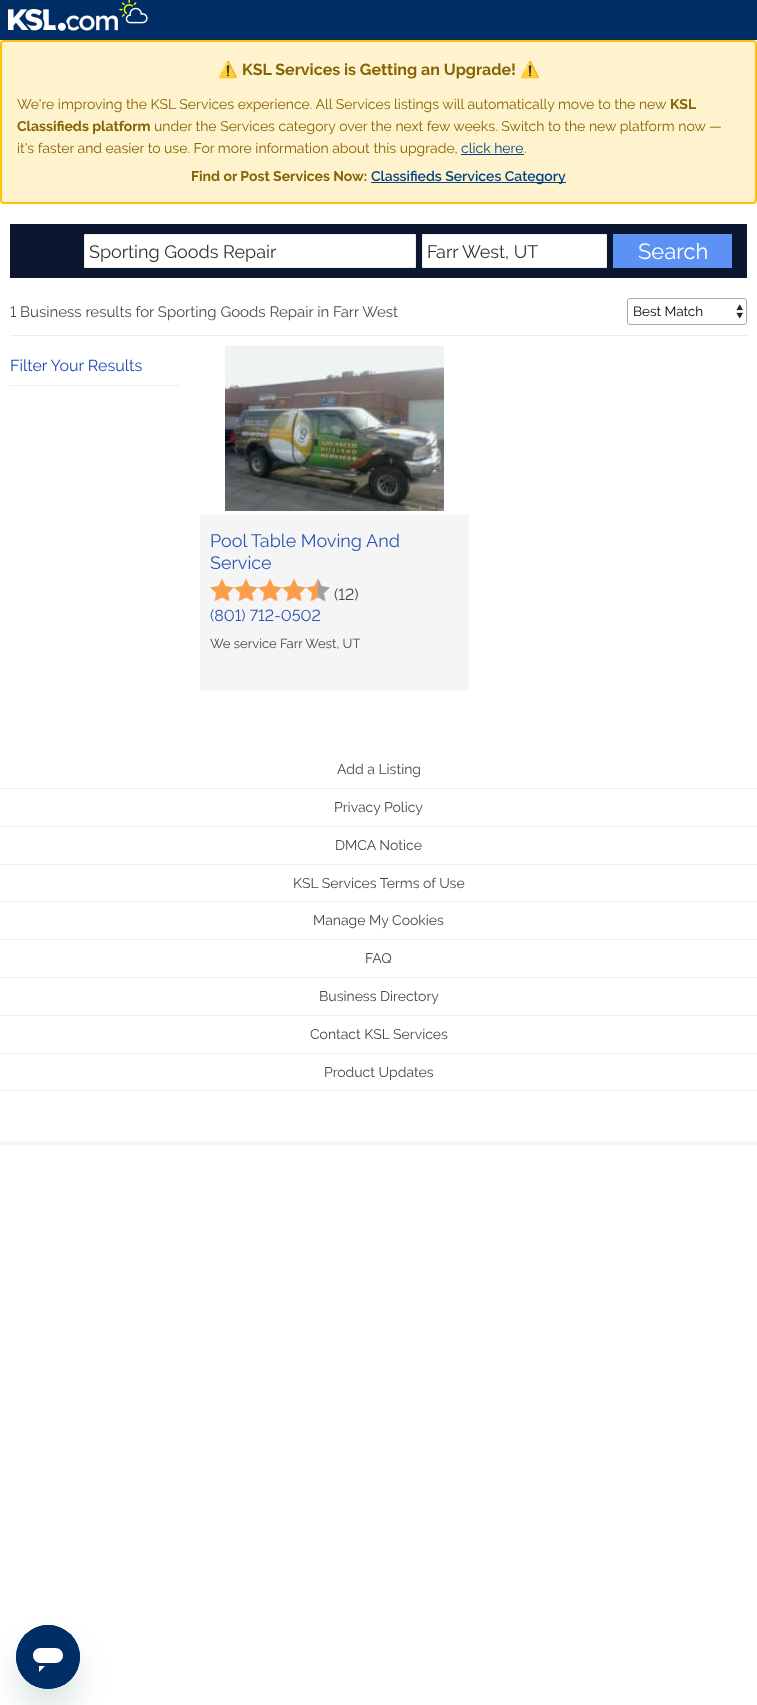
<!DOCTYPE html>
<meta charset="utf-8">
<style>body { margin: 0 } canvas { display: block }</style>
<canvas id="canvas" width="757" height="1705"></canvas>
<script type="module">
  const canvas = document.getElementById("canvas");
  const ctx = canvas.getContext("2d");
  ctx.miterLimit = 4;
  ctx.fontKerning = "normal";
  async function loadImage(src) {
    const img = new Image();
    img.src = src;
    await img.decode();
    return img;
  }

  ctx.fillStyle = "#ffffff";
  ctx.fillRect(0, 0, 757, 1705);
  ctx.fillStyle = "#002d65";
  ctx.fillRect(0, 0, 757, 40);
  ctx.drawImage(await loadImage("img1.png"), 8, 9, 110, 22);
  ctx.drawImage(await loadImage("img2.png"), 119, 0, 29, 24);
  ctx.fillStyle = "#fff3cd";
  ctx.beginPath();
  ctx.roundRect(1, 41, 755, 162, 3);
  ctx.fill();
  ctx.strokeStyle = "#ffc107";
  ctx.lineWidth = 2;
  ctx.stroke();
  ctx.font = "16px Noto Color Emoji";
  ctx.fillStyle = "#856404";
  ctx.fillText("⚠️", 218, 75);
  ctx.font = "bold 16px Raleway";
  ctx.fillText("KSL Services is Getting an Upgrade!", 242, 75);
  ctx.font = "16px Noto Color Emoji";
  ctx.fillText("⚠️", 520, 75);
  ctx.font = "14px Raleway";
  ctx.fillText("We're improving the KSL Services experience. All Services listings will automatically move to the new", 17, 109);
  ctx.font = "bold 14px Raleway";
  ctx.fillText("KSL", 670, 109);
  ctx.fillText("Classifieds platform", 17, 131);
  ctx.font = "14px Raleway";
  ctx.fillText("under the Services category over the next few weeks. Switch to the new platform now —", 154, 131);
  ctx.fillText("it's faster and easier to use. For more information about this upgrade,", 17, 153);
  ctx.fillStyle = "#004085";
  ctx.fillText("click here", 461, 153);
  ctx.fillRect(461, 154, 63, 1);
  ctx.fillStyle = "#856404";
  ctx.fillText(".", 524, 153);
  ctx.font = "bold 14px Raleway";
  ctx.fillText("Find or Post Services Now:", 191, 181);
  ctx.fillStyle = "#004085";
  ctx.fillRect(371, 182, 195, 1);
  ctx.font = "600 14px Raleway";
  ctx.fillText("Classifieds Services Category", 371, 181);
  ctx.fillStyle = "#0b162f";
  ctx.fillRect(10, 224, 737, 54);
  ctx.fillStyle = "#ffffff";
  ctx.beginPath();
  ctx.rect(84.5, 234.5, 331, 33);
  ctx.fill();
  ctx.strokeStyle = "#eeeeee";
  ctx.lineWidth = 1;
  ctx.stroke();
  ctx.font = "18px Raleway";
  ctx.fillStyle = "#303030";
  ctx.fillText("Sporting Goods Repair", 89, 258);
  ctx.fillStyle = "#ffffff";
  ctx.beginPath();
  ctx.rect(422.5, 234.5, 184, 33);
  ctx.fill();
  ctx.stroke();
  ctx.fillStyle = "#303030";
  ctx.fillText("Farr West, UT", 427, 258);
  ctx.fillStyle = "#5b92f4";
  ctx.fillRect(613, 234, 119, 34);
  ctx.font = "22px Raleway";
  ctx.fillStyle = "#ffffff";
  ctx.fillText("Search", 638, 259);
  ctx.fillStyle = "#ebebeb";
  ctx.fillRect(10, 335, 737, 1);
  ctx.font = "15px Raleway";
  ctx.fillStyle = "#4c4c4c";
  ctx.fillText("1 Business results for Sporting Goods Repair in Farr West", 10, 317);
  ctx.drawImage(await loadImage("img3.png"), 736, 304, 8, 15);
  ctx.beginPath();
  ctx.roundRect(627.5, 298.5, 119, 26, 2.5);
  ctx.strokeStyle = "#a9a9a9";
  ctx.stroke();
  ctx.font = "13.5px Raleway";
  ctx.fillStyle = "#000000";
  ctx.fillText("Best Match", 633, 316);
  ctx.fillStyle = "#eeeeee";
  ctx.fillRect(10, 385, 170, 1);
  ctx.font = "16px Raleway";
  ctx.fillStyle = "#1e4ab4";
  ctx.fillText("Filter Your Results", 10, 371);
  ctx.fillStyle = "#f5f5f5";
  ctx.fillRect(200, 515, 269, 176);
  ctx.drawImage(await loadImage("img4.png"), 225, 346, 219, 165);
  ctx.font = "18px Raleway";
  ctx.fillStyle = "#2c55b3";
  ctx.fillText("Pool Table Moving And", 210, 547);
  ctx.fillText("Service", 210, 569);
  ctx.drawImage(await loadImage("img5.png"), 210, 578, 24, 24);
  ctx.drawImage(await loadImage("img5.png"), 234, 578, 24, 24);
  ctx.drawImage(await loadImage("img6.png"), 258, 578, 24, 24);
  ctx.drawImage(await loadImage("img7.png"), 282, 578, 24, 24);
  ctx.drawImage(await loadImage("img8.png"), 306, 578, 24, 24);
  ctx.font = "16px Raleway";
  ctx.fillStyle = "#464646";
  ctx.fillText("(12)", 334, 600);
  ctx.fillStyle = "#2c55b3";
  ctx.fillText("(801) 712-0502", 210, 621);
  ctx.font = "13px Raleway";
  ctx.fillStyle = "#464646";
  ctx.fillText("We service Farr West, UT", 210, 648);
  ctx.fillStyle = "#f5f5f5";
  ctx.fillRect(0, 1141, 757, 4);
  ctx.fillStyle = "#eeeeee";
  ctx.fillRect(0, 788, 757, 1);
  ctx.font = "14px Raleway";
  ctx.fillStyle = "#464646";
  ctx.fillText("Add a Listing", 337, 774);
  ctx.fillStyle = "#eeeeee";
  ctx.fillRect(0, 826, 757, 1);
  ctx.fillStyle = "#464646";
  ctx.fillText("Privacy Policy", 334, 812);
  ctx.fillStyle = "#eeeeee";
  ctx.fillRect(0, 864, 757, 1);
  ctx.fillStyle = "#464646";
  ctx.fillText("DMCA Notice", 335, 850);
  ctx.fillStyle = "#eeeeee";
  ctx.fillRect(0, 901, 757, 1);
  ctx.fillStyle = "#464646";
  ctx.fillText("KSL Services Terms of Use", 293, 888);
  ctx.fillStyle = "#eeeeee";
  ctx.fillRect(0, 939, 757, 1);
  ctx.fillStyle = "#464646";
  ctx.fillText("Manage My Cookies", 313, 925);
  ctx.fillStyle = "#eeeeee";
  ctx.fillRect(0, 977, 757, 1);
  ctx.fillStyle = "#464646";
  ctx.fillText("FAQ", 365, 963);
  ctx.fillStyle = "#eeeeee";
  ctx.fillRect(0, 1015, 757, 1);
  ctx.fillStyle = "#464646";
  ctx.fillText("Business Directory", 319, 1001);
  ctx.fillStyle = "#eeeeee";
  ctx.fillRect(0, 1053, 757, 1);
  ctx.fillStyle = "#464646";
  ctx.fillText("Contact KSL Services", 310, 1039);
  ctx.fillStyle = "#eeeeee";
  ctx.fillRect(0, 1090, 757, 1);
  ctx.fillStyle = "#464646";
  ctx.fillText("Product Updates", 324, 1077);
  ctx.fillStyle = "rgba(23, 73, 77, 0.15)";
  ctx.filter = "blur(15px)";
  ctx.beginPath();
  ctx.roundRect(16, 1645, 64, 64, 32);
  ctx.fill();
  ctx.filter = "none";
  ctx.drawImage(await loadImage("img9.png"), 16, 1625, 64, 64);
</script>
